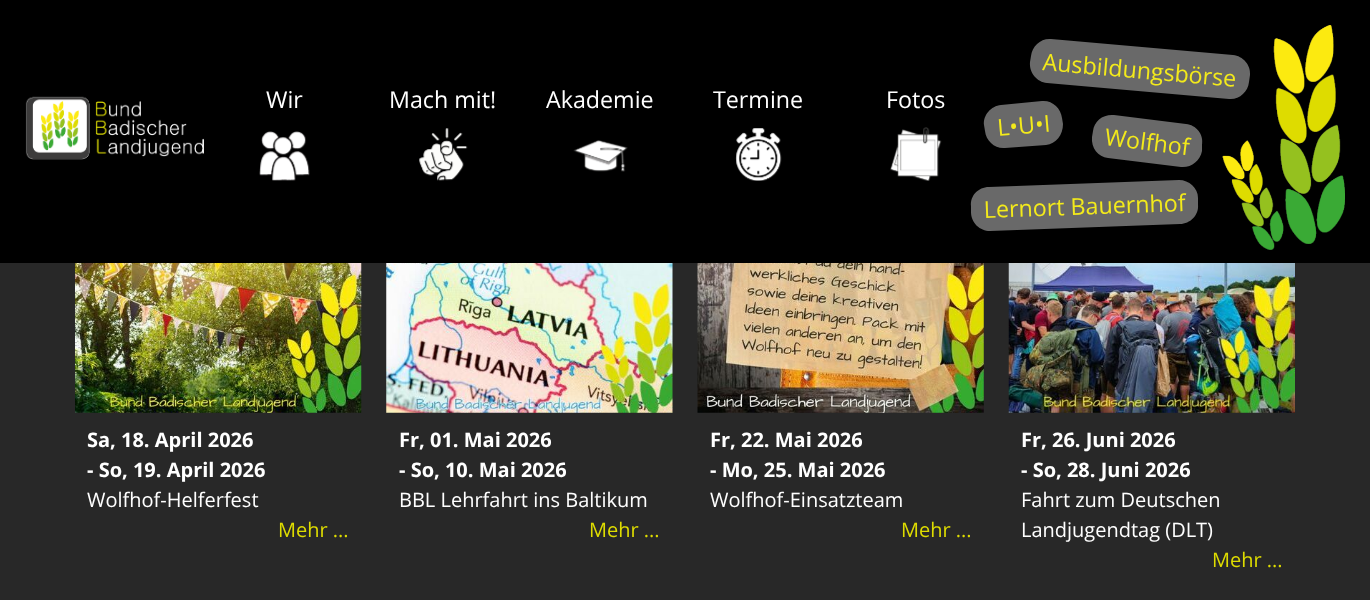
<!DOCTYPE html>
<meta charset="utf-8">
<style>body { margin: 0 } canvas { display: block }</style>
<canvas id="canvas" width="1370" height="600"></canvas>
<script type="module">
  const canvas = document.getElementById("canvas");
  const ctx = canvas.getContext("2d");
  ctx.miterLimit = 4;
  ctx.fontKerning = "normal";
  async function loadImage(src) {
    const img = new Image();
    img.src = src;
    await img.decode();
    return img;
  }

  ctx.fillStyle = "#282828";
  ctx.fillRect(0, 0, 1370, 600);
  ctx.fillStyle = "#000000";
  ctx.fillRect(0, 0, 1370, 263);
  ctx.drawImage(await loadImage("img1.png"), 25, 96, 179, 64);
  ctx.font = "23.25px Open Sans";
  ctx.fillStyle = "#ffffff";
  ctx.fillText("Wir", 266, 108);
  ctx.drawImage(await loadImage("img2.png"), 259, 131, 51, 50);
  ctx.fillText("Mach mit!", 389, 108);
  ctx.drawImage(await loadImage("img3.png"), 419, 128, 49, 53);
  ctx.fillText("Akademie", 546, 108);
  ctx.drawImage(await loadImage("img4.png"), 573, 140, 55, 32);
  ctx.fillText("Termine", 713, 108);
  ctx.drawImage(await loadImage("img5.png"), 735, 128, 47, 53);
  ctx.fillText("Fotos", 886, 108);
  ctx.drawImage(await loadImage("img6.png"), 890, 127, 52, 54);
  ctx.fillStyle = "#696969";
  ctx.beginPath();
  ctx.moveTo(1051, 39);
  ctx.lineTo(1233, 55);
  ctx.bezierCurveTo(1243, 56, 1251, 65, 1250, 75);
  ctx.lineTo(1249, 82);
  ctx.bezierCurveTo(1248, 92, 1239, 100, 1229, 99);
  ctx.lineTo(1047, 83);
  ctx.bezierCurveTo(1037, 82, 1029, 73, 1030, 62);
  ctx.lineTo(1031, 56);
  ctx.bezierCurveTo(1032, 46, 1041, 38, 1051, 39);
  ctx.closePath();
  ctx.fill();
  ctx.fillStyle = "#f3ea1b";
  ctx.save();
  ctx.translate(1042, 70);
  ctx.rotate(5 * Math.PI / 180);
  ctx.fillText("Ausbildungsbörse", 0, 0);
  ctx.restore();
  ctx.drawImage(await loadImage("img7.png"), 1222, 25, 123, 225);
  ctx.fillStyle = "#696969";
  ctx.beginPath();
  ctx.moveTo(1001, 105);
  ctx.lineTo(1042, 101);
  ctx.bezierCurveTo(1052, 100, 1061, 108, 1062, 118);
  ctx.lineTo(1063, 124);
  ctx.bezierCurveTo(1063, 135, 1056, 144, 1046, 145);
  ctx.lineTo(1005, 148);
  ctx.bezierCurveTo(995, 149, 986, 141, 985, 131);
  ctx.lineTo(984, 125);
  ctx.bezierCurveTo(983, 115, 991, 106, 1001, 105);
  ctx.closePath();
  ctx.fill();
  ctx.fillStyle = "#f3ea1b";
  ctx.save();
  ctx.translate(998, 136);
  ctx.rotate(-5 * Math.PI / 180);
  ctx.fillText("L•U•I", 0, 0);
  ctx.restore();
  ctx.fillStyle = "#696969";
  ctx.beginPath();
  ctx.moveTo(1114, 115);
  ctx.lineTo(1186, 124);
  ctx.bezierCurveTo(1196, 125, 1204, 134, 1202, 145);
  ctx.lineTo(1202, 151);
  ctx.bezierCurveTo(1200, 161, 1191, 168, 1181, 167);
  ctx.lineTo(1108, 158);
  ctx.bezierCurveTo(1098, 157, 1091, 148, 1092, 137);
  ctx.lineTo(1093, 131);
  ctx.bezierCurveTo(1094, 121, 1103, 114, 1114, 115);
  ctx.closePath();
  ctx.fill();
  ctx.fillStyle = "#f3ea1b";
  ctx.save();
  ctx.translate(1104, 145);
  ctx.rotate(7 * Math.PI / 180);
  ctx.fillText("Wolfhof", 0, 0);
  ctx.restore();
  ctx.fillStyle = "#696969";
  ctx.beginPath();
  ctx.moveTo(989, 187);
  ctx.lineTo(1179, 180);
  ctx.bezierCurveTo(1189, 180, 1198, 188, 1198, 198);
  ctx.lineTo(1198, 205);
  ctx.bezierCurveTo(1199, 215, 1190, 224, 1180, 224);
  ctx.lineTo(990, 231);
  ctx.bezierCurveTo(980, 231, 971, 223, 971, 212);
  ctx.lineTo(971, 206);
  ctx.bezierCurveTo(970, 196, 978, 187, 989, 187);
  ctx.closePath();
  ctx.fill();
  ctx.fillStyle = "#f3ea1b";
  ctx.save();
  ctx.translate(984, 218);
  ctx.rotate(-2 * Math.PI / 180);
  ctx.fillText("Lernort Bauernhof", 0, 0);
  ctx.restore();
  ctx.drawImage(await loadImage("img8.png"), 75, 263, 287, 150);
  ctx.font = "bold 20px Open Sans";
  ctx.fillStyle = "#ffffff";
  ctx.fillText("Sa, 18. April 2026", 87, 447);
  ctx.fillText("- So, 19. April 2026", 87, 477);
  ctx.font = "20px Open Sans";
  ctx.fillText("Wolfhof-Helferfest", 87, 507);
  ctx.fillStyle = "#dedc00";
  ctx.fillText("Mehr ...", 278, 537);
  ctx.drawImage(await loadImage("img9.png"), 386, 263, 287, 150);
  ctx.font = "bold 20px Open Sans";
  ctx.fillStyle = "#ffffff";
  ctx.fillText("Fr, 01. Mai 2026", 399, 447);
  ctx.fillText("- So, 10. Mai 2026", 399, 477);
  ctx.font = "20px Open Sans";
  ctx.fillText("BBL Lehrfahrt ins Baltikum", 399, 507);
  ctx.fillStyle = "#dedc00";
  ctx.fillText("Mehr ...", 589, 537);
  ctx.drawImage(await loadImage("img10.png"), 697, 263, 287, 150);
  ctx.font = "bold 20px Open Sans";
  ctx.fillStyle = "#ffffff";
  ctx.fillText("Fr, 22. Mai 2026", 710, 447);
  ctx.fillText("- Mo, 25. Mai 2026", 710, 477);
  ctx.font = "20px Open Sans";
  ctx.fillText("Wolfhof-Einsatzteam", 710, 507);
  ctx.fillStyle = "#dedc00";
  ctx.fillText("Mehr ...", 901, 537);
  ctx.drawImage(await loadImage("img11.png"), 1008, 263, 287, 150);
  ctx.font = "bold 20px Open Sans";
  ctx.fillStyle = "#ffffff";
  ctx.fillText("Fr, 26. Juni 2026", 1021, 447);
  ctx.fillText("- So, 28. Juni 2026", 1021, 477);
  ctx.font = "20px Open Sans";
  ctx.fillText("Fahrt zum Deutschen", 1021, 507);
  ctx.fillText("Landjugendtag (DLT)", 1021, 537);
  ctx.fillStyle = "#dedc00";
  ctx.fillText("Mehr ...", 1212, 567);
</script>
